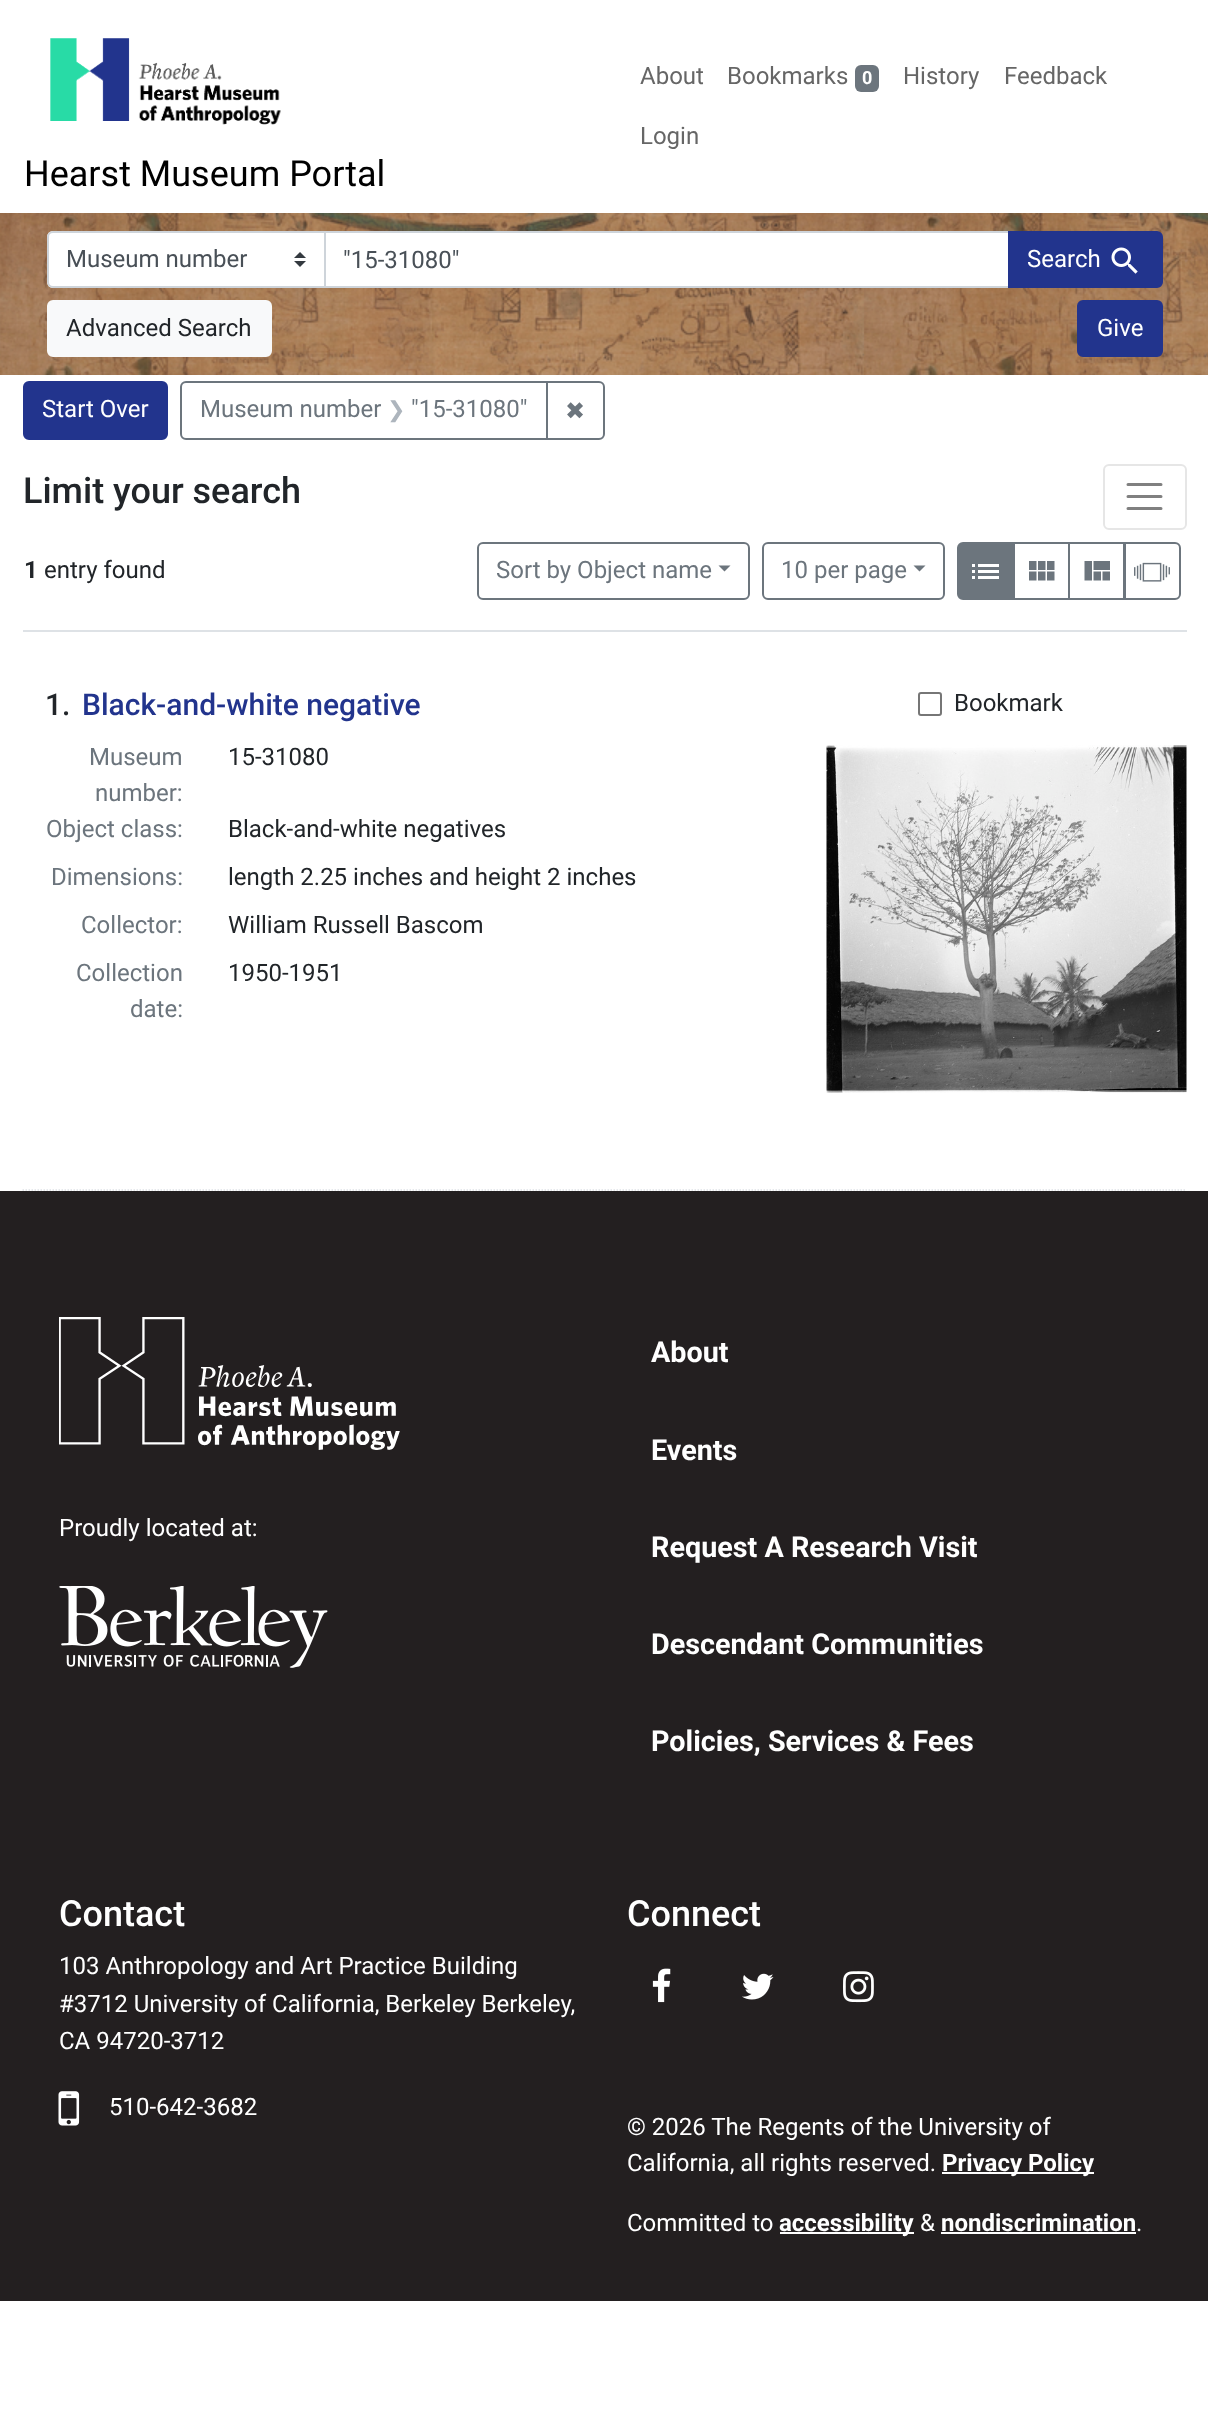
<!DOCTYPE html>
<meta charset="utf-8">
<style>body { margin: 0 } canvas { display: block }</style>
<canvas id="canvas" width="1208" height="2436"></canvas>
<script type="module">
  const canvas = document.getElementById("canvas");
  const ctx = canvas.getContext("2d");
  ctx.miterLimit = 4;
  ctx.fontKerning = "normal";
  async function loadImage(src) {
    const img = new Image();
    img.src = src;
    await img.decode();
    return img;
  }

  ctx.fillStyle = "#ffffff";
  ctx.fillRect(0, 0, 1208, 2436);
  ctx.font = "24px Roboto";
  ctx.fillStyle = "#666666";
  ctx.fillText("About", 640, 84);
  ctx.fillText("Bookmarks", 727, 84);
  ctx.fillStyle = "#6c757d";
  ctx.beginPath();
  ctx.roundRect(855, 65, 24, 27, 6);
  ctx.fill();
  ctx.font = "bold 18px Roboto";
  ctx.fillStyle = "#ffffff";
  ctx.fillText("0", 862, 84);
  ctx.font = "24px Roboto";
  ctx.fillStyle = "#666666";
  ctx.fillText("History", 903, 84);
  ctx.fillText("Feedback", 1004, 84);
  ctx.fillText("Login", 640, 144);
  ctx.drawImage(await loadImage("img1.png"), 50, 38, 231, 87);
  ctx.font = "36px Roboto";
  ctx.fillStyle = "#000000";
  ctx.fillText("Hearst Museum Portal", 24, 186);
  ctx.drawImage(await loadImage("img2.png"), 0, 213, 1208, 162);
  ctx.fillStyle = "#ffffff";
  ctx.beginPath();
  ctx.roundRect(47, 231, 279, 57, [6, 0, 0, 6]);
  ctx.fill();
  ctx.drawImage(await loadImage("img3.png"), 294, 252, 12, 15);
  ctx.beginPath();
  ctx.roundRect(48, 232, 277, 55, [5, 0, 0, 5]);
  ctx.strokeStyle = "#ced4da";
  ctx.lineWidth = 2;
  ctx.stroke();
  ctx.font = "24px Roboto";
  ctx.fillStyle = "#495057";
  ctx.fillText("Museum number", 66, 267);
  ctx.fillStyle = "#ffffff";
  ctx.beginPath();
  ctx.rect(325, 232, 684, 55);
  ctx.fill();
  ctx.stroke();
  ctx.fillStyle = "#495057";
  ctx.fillText("\"15-31080\"", 343, 268);
  ctx.fillStyle = "#22348d";
  ctx.beginPath();
  ctx.roundRect(1009, 232, 153, 55, [0, 5, 5, 0]);
  ctx.fill();
  ctx.strokeStyle = "#22348d";
  ctx.stroke();
  ctx.fillStyle = "#ffffff";
  ctx.fillText("Search", 1027, 267);
  ctx.drawImage(await loadImage("img4.png"), 1111, 247, 27, 27);
  ctx.fillStyle = "#f8f9fa";
  ctx.beginPath();
  ctx.roundRect(48, 301, 223, 55, 5);
  ctx.fill();
  ctx.strokeStyle = "#f8f9fa";
  ctx.stroke();
  ctx.fillStyle = "#212529";
  ctx.fillText("Advanced Search", 66, 336);
  ctx.fillStyle = "#22348d";
  ctx.beginPath();
  ctx.roundRect(1078, 301, 84, 55, 5);
  ctx.fill();
  ctx.strokeStyle = "#22348d";
  ctx.stroke();
  ctx.fillStyle = "#ffffff";
  ctx.fillText("Give", 1097, 336);
  ctx.fillStyle = "#22348d";
  ctx.beginPath();
  ctx.roundRect(24, 382, 143, 57, 5);
  ctx.fill();
  ctx.stroke();
  ctx.fillStyle = "#ffffff";
  ctx.fillText("Start Over", 42, 417);
  ctx.beginPath();
  ctx.roundRect(181, 382, 366, 57, [5, 0, 0, 5]);
  ctx.strokeStyle = "#6c757d";
  ctx.stroke();
  ctx.fillStyle = "#6c757d";
  ctx.fillText("Museum number", 200, 417);
  ctx.font = "22px DejaVu Sans";
  ctx.fillStyle = "#adb5bd";
  ctx.fillText("❯", 387, 417);
  ctx.font = "24px Roboto";
  ctx.fillStyle = "#6c757d";
  ctx.fillText("\"15-31080\"", 411, 417);
  ctx.beginPath();
  ctx.roundRect(547, 382, 57, 57, [0, 5, 5, 0]);
  ctx.stroke();
  ctx.font = "24px DejaVu Sans";
  ctx.fillText("✖", 565, 419);
  ctx.font = "500 36px Roboto";
  ctx.fillStyle = "#212529";
  ctx.fillText("Limit your search", 23, 503);
  ctx.beginPath();
  ctx.roundRect(1104, 465, 82, 64, 5);
  ctx.strokeStyle = "#e6e6e6";
  ctx.stroke();
  ctx.beginPath();
  ctx.moveTo(1128, 484.5);
  ctx.lineTo(1161, 484.5);
  ctx.moveTo(1128, 496.5);
  ctx.lineTo(1161, 496.5);
  ctx.moveTo(1128, 508.5);
  ctx.lineTo(1161, 508.5);
  ctx.strokeStyle = "#808080";
  ctx.lineWidth = 3;
  ctx.lineCap = "round";
  ctx.stroke();
  ctx.fillStyle = "#dee2e6";
  ctx.fillRect(23, 630, 1164, 2);
  ctx.font = "bold 24px Roboto";
  ctx.fillStyle = "#212529";
  ctx.fillText("1", 24, 578);
  ctx.font = "24px Roboto";
  ctx.fillText("entry found", 44, 578);
  ctx.beginPath();
  ctx.roundRect(478, 543, 271, 56, 5);
  ctx.strokeStyle = "#6c757d";
  ctx.lineWidth = 2;
  ctx.stroke();
  ctx.fillStyle = "#6c757d";
  ctx.fillText("Sort by Object name", 496, 578);
  ctx.beginPath();
  ctx.moveTo(718.5, 565.5);
  ctx.lineTo(730.5, 565.5);
  ctx.lineTo(724.5, 571.5);
  ctx.closePath();
  ctx.fill();
  ctx.beginPath();
  ctx.roundRect(763, 543, 181, 56, 5);
  ctx.stroke();
  ctx.fillText("10 per page", 781, 578);
  ctx.beginPath();
  ctx.moveTo(913.5, 565.5);
  ctx.lineTo(925.5, 565.5);
  ctx.lineTo(919.5, 571.5);
  ctx.closePath();
  ctx.fill();
  ctx.strokeRect(1014, 543, 55, 56);
  ctx.beginPath();
  ctx.roundRect(958, 543, 55, 56, [5, 0, 0, 5]);
  ctx.fill();
  ctx.stroke();
  ctx.drawImage(await loadImage("img5.png"), 972, 564, 27, 15);
  ctx.drawImage(await loadImage("img6.png"), 1029, 561, 26, 20);
  ctx.strokeRect(1069, 543, 55, 56);
  ctx.drawImage(await loadImage("img7.png"), 1084, 561, 26, 20);
  ctx.beginPath();
  ctx.roundRect(1125, 543, 55, 56, [0, 5, 5, 0]);
  ctx.stroke();
  ctx.drawImage(await loadImage("img8.png"), 1134, 562, 36, 20);
  ctx.beginPath();
  ctx.moveTo(22.5, 1190);
  ctx.lineTo(1186.5, 1190);
  ctx.strokeStyle = "#dee2e6";
  ctx.lineWidth = 1.5;
  ctx.lineCap = "butt";
  ctx.setLineDash([1.5, 1.5]);
  ctx.stroke();
  ctx.font = "500 30px Roboto";
  ctx.fillStyle = "#212529";
  ctx.fillText("1.", 45, 715);
  ctx.fillStyle = "#22348d";
  ctx.fillText("Black-and-white negative", 82, 715);
  ctx.beginPath();
  ctx.roundRect(919, 693, 22, 22, 2);
  ctx.strokeStyle = "#767676";
  ctx.lineWidth = 2;
  ctx.setLineDash([]);
  ctx.stroke();
  ctx.font = "24px Roboto";
  ctx.fillStyle = "#212529";
  ctx.fillText("Bookmark", 954, 711);
  ctx.fillStyle = "#6c757d";
  ctx.fillText("Museum", 89, 765);
  ctx.fillText("number:", 95, 801);
  ctx.fillStyle = "#212529";
  ctx.fillText("15-31080", 228, 765);
  ctx.fillStyle = "#6c757d";
  ctx.fillText("Object class:", 46, 837);
  ctx.fillStyle = "#212529";
  ctx.fillText("Black-and-white negatives", 228, 837);
  ctx.fillStyle = "#6c757d";
  ctx.fillText("Dimensions:", 51, 885);
  ctx.fillStyle = "#212529";
  ctx.fillText("length 2.25 inches and height 2 inches", 228, 885);
  ctx.fillStyle = "#6c757d";
  ctx.fillText("Collector:", 81, 933);
  ctx.fillStyle = "#212529";
  ctx.fillText("William Russell Bascom", 228, 933);
  ctx.fillStyle = "#6c757d";
  ctx.fillText("Collection", 76, 981);
  ctx.fillText("date:", 130, 1017);
  ctx.fillStyle = "#212529";
  ctx.fillText("1950-1951", 228, 981);
  ctx.drawImage(await loadImage("img9.png"), 826, 745, 361, 348);
  ctx.fillStyle = "#231f20";
  ctx.fillRect(0, 1191, 1208, 1110);
  ctx.drawImage(await loadImage("img10.png"), 59, 1317, 341, 133);
  ctx.fillStyle = "#ffffff";
  ctx.fillText("Proudly located at:", 59, 1536);
  ctx.drawImage(await loadImage("img11.png"), 59, 1586, 269, 82);
  ctx.font = "bold 28.75px Roboto";
  ctx.fillText("About", 651, 1362);
  ctx.fillText("Events", 651, 1460);
  ctx.fillText("Request A Research Visit", 651, 1557);
  ctx.fillText("Descendant Communities", 651, 1654);
  ctx.fillText("Policies, Services & Fees", 651, 1751);
  ctx.font = "500 36px Roboto";
  ctx.fillText("Contact", 59, 1926);
  ctx.font = "24px Roboto";
  ctx.fillText("103 Anthropology and Art Practice Building", 59, 1974);
  ctx.fillText("#3712 University of California, Berkeley Berkeley,", 59, 2012);
  ctx.fillText("CA 94720-3712", 59, 2049);
  ctx.drawImage(await loadImage("img12.png"), 58, 2091, 22, 35);
  ctx.fillText("510-642-3682", 109, 2115);
  ctx.font = "500 36px Roboto";
  ctx.fillText("Connect", 627, 1926);
  ctx.drawImage(await loadImage("img13.png"), 652, 1968, 19, 35);
  ctx.drawImage(await loadImage("img14.png"), 742, 1973, 32, 27);
  ctx.drawImage(await loadImage("img15.png"), 843, 1971, 31, 32);
  ctx.font = "24px Roboto";
  ctx.fillText("© 2026 The Regents of the University of", 627, 2135);
  ctx.fillText("California, all rights reserved.", 627, 2171);
  ctx.fillRect(942, 2172, 152, 2);
  ctx.font = "bold 24px Roboto";
  ctx.fillText("Privacy Policy", 942, 2171);
  ctx.font = "24px Roboto";
  ctx.fillText("Committed to", 627, 2231);
  ctx.fillRect(780, 2232, 134, 2);
  ctx.font = "bold 24px Roboto";
  ctx.fillText("accessibility", 779, 2231);
  ctx.font = "24px Roboto";
  ctx.fillText("&", 920, 2231);
  ctx.font = "bold 24px Roboto";
  ctx.fillText("nondiscrimination", 941, 2231);
  ctx.fillRect(941, 2232, 195, 2);
  ctx.font = "24px Roboto";
  ctx.fillText(".", 1136, 2231);
</script>
